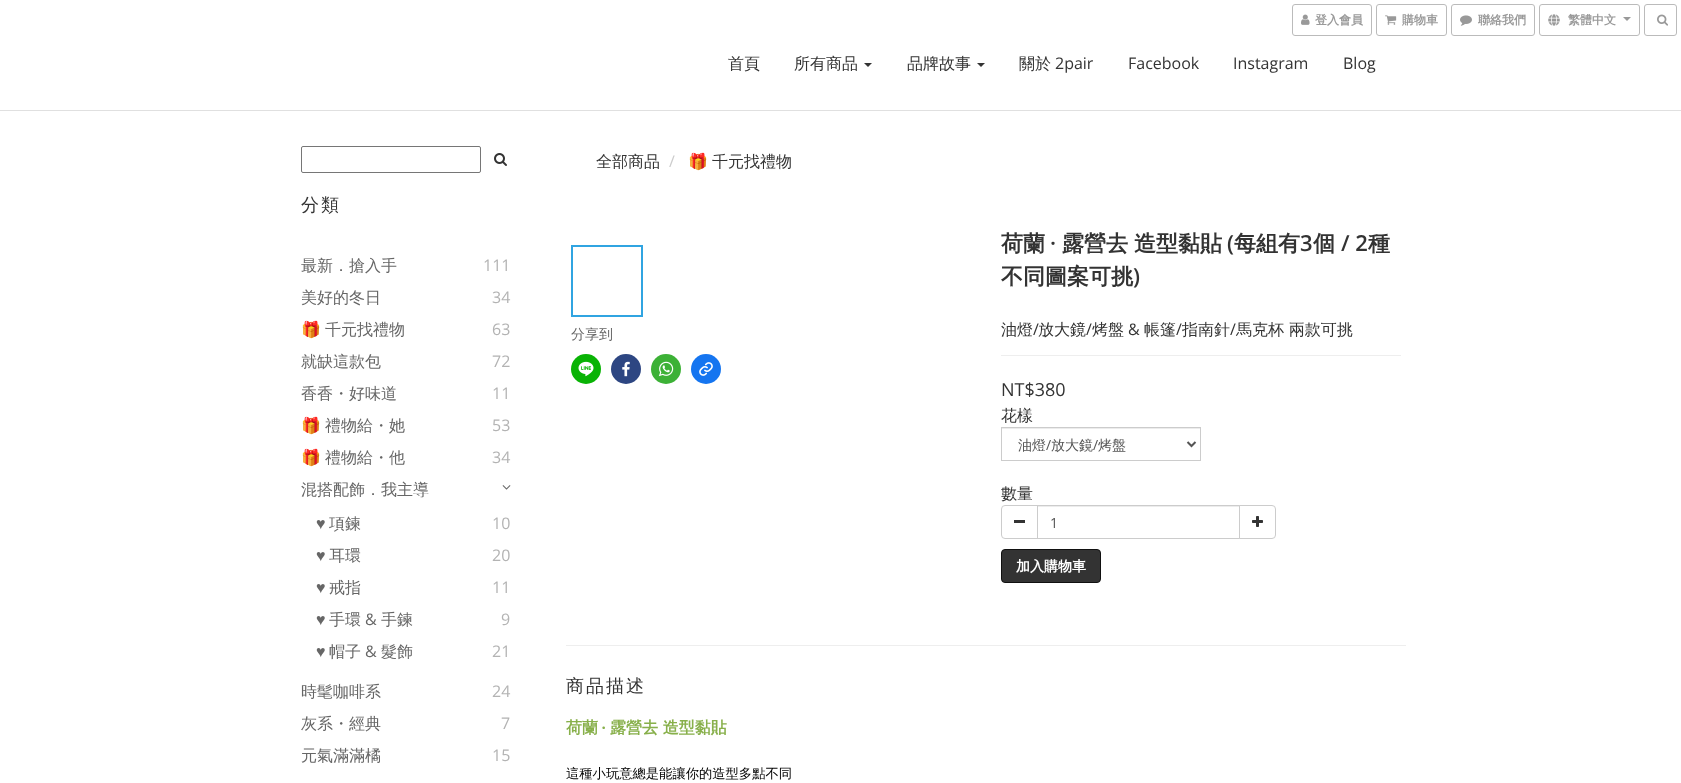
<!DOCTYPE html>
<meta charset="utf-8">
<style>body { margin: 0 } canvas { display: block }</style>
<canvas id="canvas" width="1681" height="783"></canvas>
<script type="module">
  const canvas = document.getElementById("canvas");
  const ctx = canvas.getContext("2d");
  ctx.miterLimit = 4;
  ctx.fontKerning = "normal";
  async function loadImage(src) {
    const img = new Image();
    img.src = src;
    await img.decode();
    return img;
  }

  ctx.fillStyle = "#ffffff";
  ctx.fillRect(0, 0, 1681, 783);
  ctx.beginPath();
  ctx.roundRect(1292.5, 4.5, 79, 31, 2.5);
  ctx.strokeStyle = "#bbbbbb";
  ctx.stroke();
  ctx.drawImage(await loadImage("img1.png"), 1301, 14, 9, 11);
  ctx.font = "bold 12px WenQuanYi Zen Hei";
  ctx.fillStyle = "#999999";
  ctx.fillText("登入會員", 1315, 24);
  ctx.beginPath();
  ctx.roundRect(1376.5, 4.5, 70, 31, 2.5);
  ctx.stroke();
  ctx.drawImage(await loadImage("img2.png"), 1385, 15, 12, 10);
  ctx.fillText("購物車", 1402, 24);
  ctx.beginPath();
  ctx.roundRect(1451.5, 4.5, 83, 31, 2.5);
  ctx.stroke();
  ctx.drawImage(await loadImage("img3.png"), 1460, 15, 12, 11);
  ctx.fillText("聯絡我們", 1478, 24);
  ctx.beginPath();
  ctx.roundRect(1539.5, 4.5, 100, 31, 2.5);
  ctx.stroke();
  ctx.drawImage(await loadImage("img4.png"), 1548, 14, 12, 12);
  ctx.fillText("繁體中文", 1568, 24);
  ctx.beginPath();
  ctx.moveTo(1623, 17);
  ctx.lineTo(1631, 17);
  ctx.lineTo(1627, 21);
  ctx.closePath();
  ctx.fill();
  ctx.beginPath();
  ctx.roundRect(1644.5, 4.5, 32, 31, 2.5);
  ctx.stroke();
  ctx.drawImage(await loadImage("img5.png"), 1657, 14, 11, 12);
  ctx.fillStyle = "#e0e0e0";
  ctx.fillRect(0, 110, 1681, 1);
  ctx.font = "500 16px WenQuanYi Zen Hei";
  ctx.fillStyle = "#333333";
  ctx.fillText("首頁", 728, 69);
  ctx.fillText("所有商品", 794, 69);
  ctx.beginPath();
  ctx.moveTo(864, 63);
  ctx.lineTo(872, 63);
  ctx.lineTo(868, 67);
  ctx.closePath();
  ctx.fill();
  ctx.fillText("品牌故事", 907, 69);
  ctx.beginPath();
  ctx.moveTo(977, 63);
  ctx.lineTo(985, 63);
  ctx.lineTo(981, 67);
  ctx.closePath();
  ctx.fill();
  ctx.fillText("關於", 1019, 69);
  ctx.font = "16px Open Sans";
  ctx.fillText("2pair", 1055, 69);
  ctx.fillText("Facebook", 1128, 69);
  ctx.fillText("Instagram", 1233, 69);
  ctx.fillText("Blog", 1343, 69);
  ctx.beginPath();
  ctx.roundRect(301.5, 146.5, 179, 26, 1.5);
  ctx.strokeStyle = "#767676";
  ctx.stroke();
  ctx.drawImage(await loadImage("img6.png"), 494, 153, 13, 13);
  ctx.letterSpacing = "2px";
  ctx.font = "500 18px WenQuanYi Zen Hei";
  ctx.fillText("分類", 301, 211);
  ctx.letterSpacing = "0px";
  ctx.font = "500 16px WenQuanYi Zen Hei";
  ctx.fillStyle = "#666666";
  ctx.fillText("最新．搶入手", 301, 271);
  ctx.font = "16px Open Sans";
  ctx.fillStyle = "#b3b3b3";
  ctx.fillText("111", 483, 271);
  ctx.font = "500 16px WenQuanYi Zen Hei";
  ctx.fillStyle = "#666666";
  ctx.fillText("美好的冬日", 301, 303);
  ctx.font = "16px Open Sans";
  ctx.fillStyle = "#b3b3b3";
  ctx.fillText("34", 492, 303);
  ctx.font = "16px Noto Color Emoji";
  ctx.fillStyle = "#666666";
  ctx.fillText("🎁", 301, 335);
  ctx.font = "500 16px WenQuanYi Zen Hei";
  ctx.fillText("千元找禮物", 325, 335);
  ctx.font = "16px Open Sans";
  ctx.fillStyle = "#b3b3b3";
  ctx.fillText("63", 492, 335);
  ctx.font = "500 16px WenQuanYi Zen Hei";
  ctx.fillStyle = "#666666";
  ctx.fillText("就缺這款包", 301, 367);
  ctx.font = "16px Open Sans";
  ctx.fillStyle = "#b3b3b3";
  ctx.fillText("72", 492, 367);
  ctx.font = "500 16px WenQuanYi Zen Hei";
  ctx.fillStyle = "#666666";
  ctx.fillText("香香・好味道", 301, 399);
  ctx.font = "16px Open Sans";
  ctx.fillStyle = "#b3b3b3";
  ctx.fillText("11", 492, 399);
  ctx.font = "16px Noto Color Emoji";
  ctx.fillStyle = "#666666";
  ctx.fillText("🎁", 301, 431);
  ctx.font = "500 16px WenQuanYi Zen Hei";
  ctx.fillText("禮物給・她", 325, 431);
  ctx.font = "16px Open Sans";
  ctx.fillStyle = "#b3b3b3";
  ctx.fillText("53", 492, 431);
  ctx.font = "16px Noto Color Emoji";
  ctx.fillStyle = "#666666";
  ctx.fillText("🎁", 301, 463);
  ctx.font = "500 16px WenQuanYi Zen Hei";
  ctx.fillText("禮物給・他", 325, 463);
  ctx.font = "16px Open Sans";
  ctx.fillStyle = "#b3b3b3";
  ctx.fillText("34", 492, 463);
  ctx.font = "500 16px WenQuanYi Zen Hei";
  ctx.fillStyle = "#666666";
  ctx.fillText("混搭配飾．我主導", 301, 495);
  ctx.drawImage(await loadImage("img7.png"), 502, 485, 9, 5);
  ctx.font = "16px Liberation Sans";
  ctx.fillText("♥", 316, 529);
  ctx.font = "500 16px WenQuanYi Zen Hei";
  ctx.fillText("項鍊", 329, 529);
  ctx.font = "16px Open Sans";
  ctx.fillStyle = "#b3b3b3";
  ctx.fillText("10", 492, 529);
  ctx.font = "16px Liberation Sans";
  ctx.fillStyle = "#666666";
  ctx.fillText("♥", 316, 561);
  ctx.font = "500 16px WenQuanYi Zen Hei";
  ctx.fillText("耳環", 329, 561);
  ctx.font = "16px Open Sans";
  ctx.fillStyle = "#b3b3b3";
  ctx.fillText("20", 492, 561);
  ctx.font = "16px Liberation Sans";
  ctx.fillStyle = "#666666";
  ctx.fillText("♥", 316, 593);
  ctx.font = "500 16px WenQuanYi Zen Hei";
  ctx.fillText("戒指", 329, 593);
  ctx.font = "16px Open Sans";
  ctx.fillStyle = "#b3b3b3";
  ctx.fillText("11", 492, 593);
  ctx.font = "16px Liberation Sans";
  ctx.fillStyle = "#666666";
  ctx.fillText("♥", 316, 625);
  ctx.font = "500 16px WenQuanYi Zen Hei";
  ctx.fillText("手環", 329, 625);
  ctx.font = "16px Open Sans";
  ctx.fillText("&", 365, 625);
  ctx.font = "500 16px WenQuanYi Zen Hei";
  ctx.fillText("手鍊", 381, 625);
  ctx.font = "16px Open Sans";
  ctx.fillStyle = "#b3b3b3";
  ctx.fillText("9", 501, 625);
  ctx.font = "16px Liberation Sans";
  ctx.fillStyle = "#666666";
  ctx.fillText("♥", 316, 657);
  ctx.font = "500 16px WenQuanYi Zen Hei";
  ctx.fillText("帽子", 329, 657);
  ctx.font = "16px Open Sans";
  ctx.fillText("&", 365, 657);
  ctx.font = "500 16px WenQuanYi Zen Hei";
  ctx.fillText("髮飾", 381, 657);
  ctx.font = "16px Open Sans";
  ctx.fillStyle = "#b3b3b3";
  ctx.fillText("21", 492, 657);
  ctx.font = "500 16px WenQuanYi Zen Hei";
  ctx.fillStyle = "#666666";
  ctx.fillText("時髦咖啡系", 301, 697);
  ctx.font = "16px Open Sans";
  ctx.fillStyle = "#b3b3b3";
  ctx.fillText("24", 492, 697);
  ctx.font = "500 16px WenQuanYi Zen Hei";
  ctx.fillStyle = "#666666";
  ctx.fillText("灰系・經典", 301, 729);
  ctx.font = "16px Open Sans";
  ctx.fillStyle = "#b3b3b3";
  ctx.fillText("7", 501, 729);
  ctx.font = "500 16px WenQuanYi Zen Hei";
  ctx.fillStyle = "#666666";
  ctx.fillText("元氣滿滿橘", 301, 761);
  ctx.font = "16px Open Sans";
  ctx.fillStyle = "#b3b3b3";
  ctx.fillText("15", 492, 761);
  ctx.font = "500 16px WenQuanYi Zen Hei";
  ctx.fillStyle = "#333333";
  ctx.fillText("全部商品", 596, 167);
  ctx.font = "16px Open Sans";
  ctx.fillStyle = "#cccccc";
  ctx.fillText("/", 669, 167);
  ctx.font = "16px Noto Color Emoji";
  ctx.fillStyle = "#333333";
  ctx.fillText("🎁", 688, 167);
  ctx.font = "500 16px WenQuanYi Zen Hei";
  ctx.fillText("千元找禮物", 712, 167);
  ctx.strokeStyle = "#30a4e1";
  ctx.lineWidth = 2;
  ctx.strokeRect(572, 246, 70, 70);
  ctx.font = "500 14px WenQuanYi Zen Hei";
  ctx.fillStyle = "#666666";
  ctx.fillText("分享到", 571, 339);
  ctx.fillStyle = "#09b305";
  ctx.beginPath();
  ctx.arc(586, 369, 15, 0, Math.PI * 2);
  ctx.fill();
  ctx.drawImage(await loadImage("img8.png"), 578, 361, 16, 16);
  ctx.fillStyle = "#2d4682";
  ctx.beginPath();
  ctx.arc(626, 369, 15, 0, Math.PI * 2);
  ctx.fill();
  ctx.drawImage(await loadImage("img9.png"), 622, 361, 8, 16);
  ctx.fillStyle = "#3cb136";
  ctx.beginPath();
  ctx.arc(666, 369, 15, 0, Math.PI * 2);
  ctx.fill();
  ctx.drawImage(await loadImage("img10.png"), 658, 361, 16, 16);
  ctx.fillStyle = "#1575f0";
  ctx.beginPath();
  ctx.arc(706, 369, 15, 0, Math.PI * 2);
  ctx.fill();
  ctx.drawImage(await loadImage("img11.png"), 699, 362, 14, 14);
  ctx.font = "bold 22px WenQuanYi Zen Hei";
  ctx.fillStyle = "#333333";
  ctx.fillText("荷蘭", 1001, 251);
  ctx.font = "600 22px Open Sans";
  ctx.fillText("·", 1050, 251);
  ctx.font = "bold 22px WenQuanYi Zen Hei";
  ctx.fillText("露營去", 1062, 251);
  ctx.fillText("造型黏貼", 1134, 251);
  ctx.font = "600 22px Open Sans";
  ctx.fillText("(", 1227, 251);
  ctx.font = "bold 22px WenQuanYi Zen Hei";
  ctx.fillText("每組有", 1234, 251);
  ctx.font = "600 22px Open Sans";
  ctx.fillText("3", 1300, 251);
  ctx.font = "bold 22px WenQuanYi Zen Hei";
  ctx.fillText("個", 1313, 251);
  ctx.font = "600 22px Open Sans";
  ctx.fillText("/ 2", 1341, 251);
  ctx.font = "bold 22px WenQuanYi Zen Hei";
  ctx.fillText("種", 1368, 251);
  ctx.fillText("不同圖案可挑", 1001, 284);
  ctx.font = "600 22px Open Sans";
  ctx.fillText(")", 1133, 284);
  ctx.font = "500 16px WenQuanYi Zen Hei";
  ctx.fillText("油燈", 1001, 335);
  ctx.font = "16px Open Sans";
  ctx.fillText("/", 1033, 335);
  ctx.font = "500 16px WenQuanYi Zen Hei";
  ctx.fillText("放大鏡", 1038, 335);
  ctx.font = "16px Open Sans";
  ctx.fillText("/", 1086, 335);
  ctx.font = "500 16px WenQuanYi Zen Hei";
  ctx.fillText("烤盤", 1092, 335);
  ctx.font = "16px Open Sans";
  ctx.fillText("&", 1128, 335);
  ctx.font = "500 16px WenQuanYi Zen Hei";
  ctx.fillText("帳篷", 1144, 335);
  ctx.font = "16px Open Sans";
  ctx.fillText("/", 1176, 335);
  ctx.font = "500 16px WenQuanYi Zen Hei";
  ctx.fillText("指南針", 1182, 335);
  ctx.font = "16px Open Sans";
  ctx.fillText("/", 1230, 335);
  ctx.font = "500 16px WenQuanYi Zen Hei";
  ctx.fillText("馬克杯 兩款可挑", 1236, 335);
  ctx.fillStyle = "#eeeeee";
  ctx.fillRect(1001, 355, 400, 1);
  ctx.font = "18px Open Sans";
  ctx.fillStyle = "#333333";
  ctx.fillText("NT$380", 1001, 396);
  ctx.font = "500 16px WenQuanYi Zen Hei";
  ctx.fillText("花樣", 1001, 421);
  ctx.fillStyle = "#ececec";
  ctx.fillRect(1002, 428, 198, 1);
  ctx.strokeStyle = "#cccccc";
  ctx.lineWidth = 1;
  ctx.strokeRect(1001.5, 427.5, 199, 33);
  ctx.beginPath();
  ctx.moveTo(1187.5, 442);
  ctx.lineTo(1191.5, 446);
  ctx.lineTo(1195.5, 442);
  ctx.strokeStyle = "#555555";
  ctx.lineWidth = 2;
  ctx.stroke();
  ctx.font = "500 14px WenQuanYi Zen Hei";
  ctx.fillStyle = "#555555";
  ctx.fillText("油燈", 1018, 450);
  ctx.font = "14px Open Sans";
  ctx.fillText("/", 1046, 450);
  ctx.font = "500 14px WenQuanYi Zen Hei";
  ctx.fillText("放大鏡", 1051, 450);
  ctx.font = "14px Open Sans";
  ctx.fillText("/", 1093, 450);
  ctx.font = "500 14px WenQuanYi Zen Hei";
  ctx.fillText("烤盤", 1098, 450);
  ctx.font = "500 16px WenQuanYi Zen Hei";
  ctx.fillStyle = "#333333";
  ctx.fillText("數量", 1001, 499);
  ctx.beginPath();
  ctx.roundRect(1001.5, 505.5, 36, 33, [3.5, 0, 0, 3.5]);
  ctx.strokeStyle = "#cccccc";
  ctx.lineWidth = 1;
  ctx.stroke();
  ctx.fillRect(1014, 520, 11, 3);
  ctx.fillStyle = "#ececec";
  ctx.fillRect(1038, 506, 201, 1);
  ctx.strokeRect(1037.5, 505.5, 202, 33);
  ctx.font = "14px Open Sans";
  ctx.fillStyle = "#555555";
  ctx.fillText("1", 1050, 528);
  ctx.fillStyle = "#ffffff";
  ctx.beginPath();
  ctx.roundRect(1239.5, 505.5, 36, 33, [0, 3.5, 3.5, 0]);
  ctx.fill();
  ctx.stroke();
  ctx.drawImage(await loadImage("img12.png"), 1252, 516, 11, 11);
  ctx.fillStyle = "#333333";
  ctx.beginPath();
  ctx.roundRect(1001.5, 549.5, 99, 33, 3.5);
  ctx.fill();
  ctx.strokeStyle = "#111111";
  ctx.stroke();
  ctx.font = "bold 14px WenQuanYi Zen Hei";
  ctx.fillStyle = "#ffffff";
  ctx.fillText("加入購物車", 1016, 571);
  ctx.fillStyle = "#eeeeee";
  ctx.fillRect(566, 645, 840, 1);
  ctx.letterSpacing = "2px";
  ctx.font = "500 18px WenQuanYi Zen Hei";
  ctx.fillStyle = "#333333";
  ctx.fillText("商品描述", 566, 692);
  ctx.letterSpacing = "0px";
  ctx.font = "bold 16px WenQuanYi Zen Hei";
  ctx.fillStyle = "#88b04b";
  ctx.fillText("荷蘭", 566, 733);
  ctx.font = "bold 16px Liberation Serif";
  ctx.fillText("·", 601, 733);
  ctx.font = "bold 16px WenQuanYi Zen Hei";
  ctx.fillText("露營去 造型黏貼", 610, 733);
  ctx.font = "500 13.3px WenQuanYi Zen Hei";
  ctx.fillStyle = "#000000";
  ctx.fillText("這種小玩意總是能讓你的造型多點不同", 566, 778);
</script>
